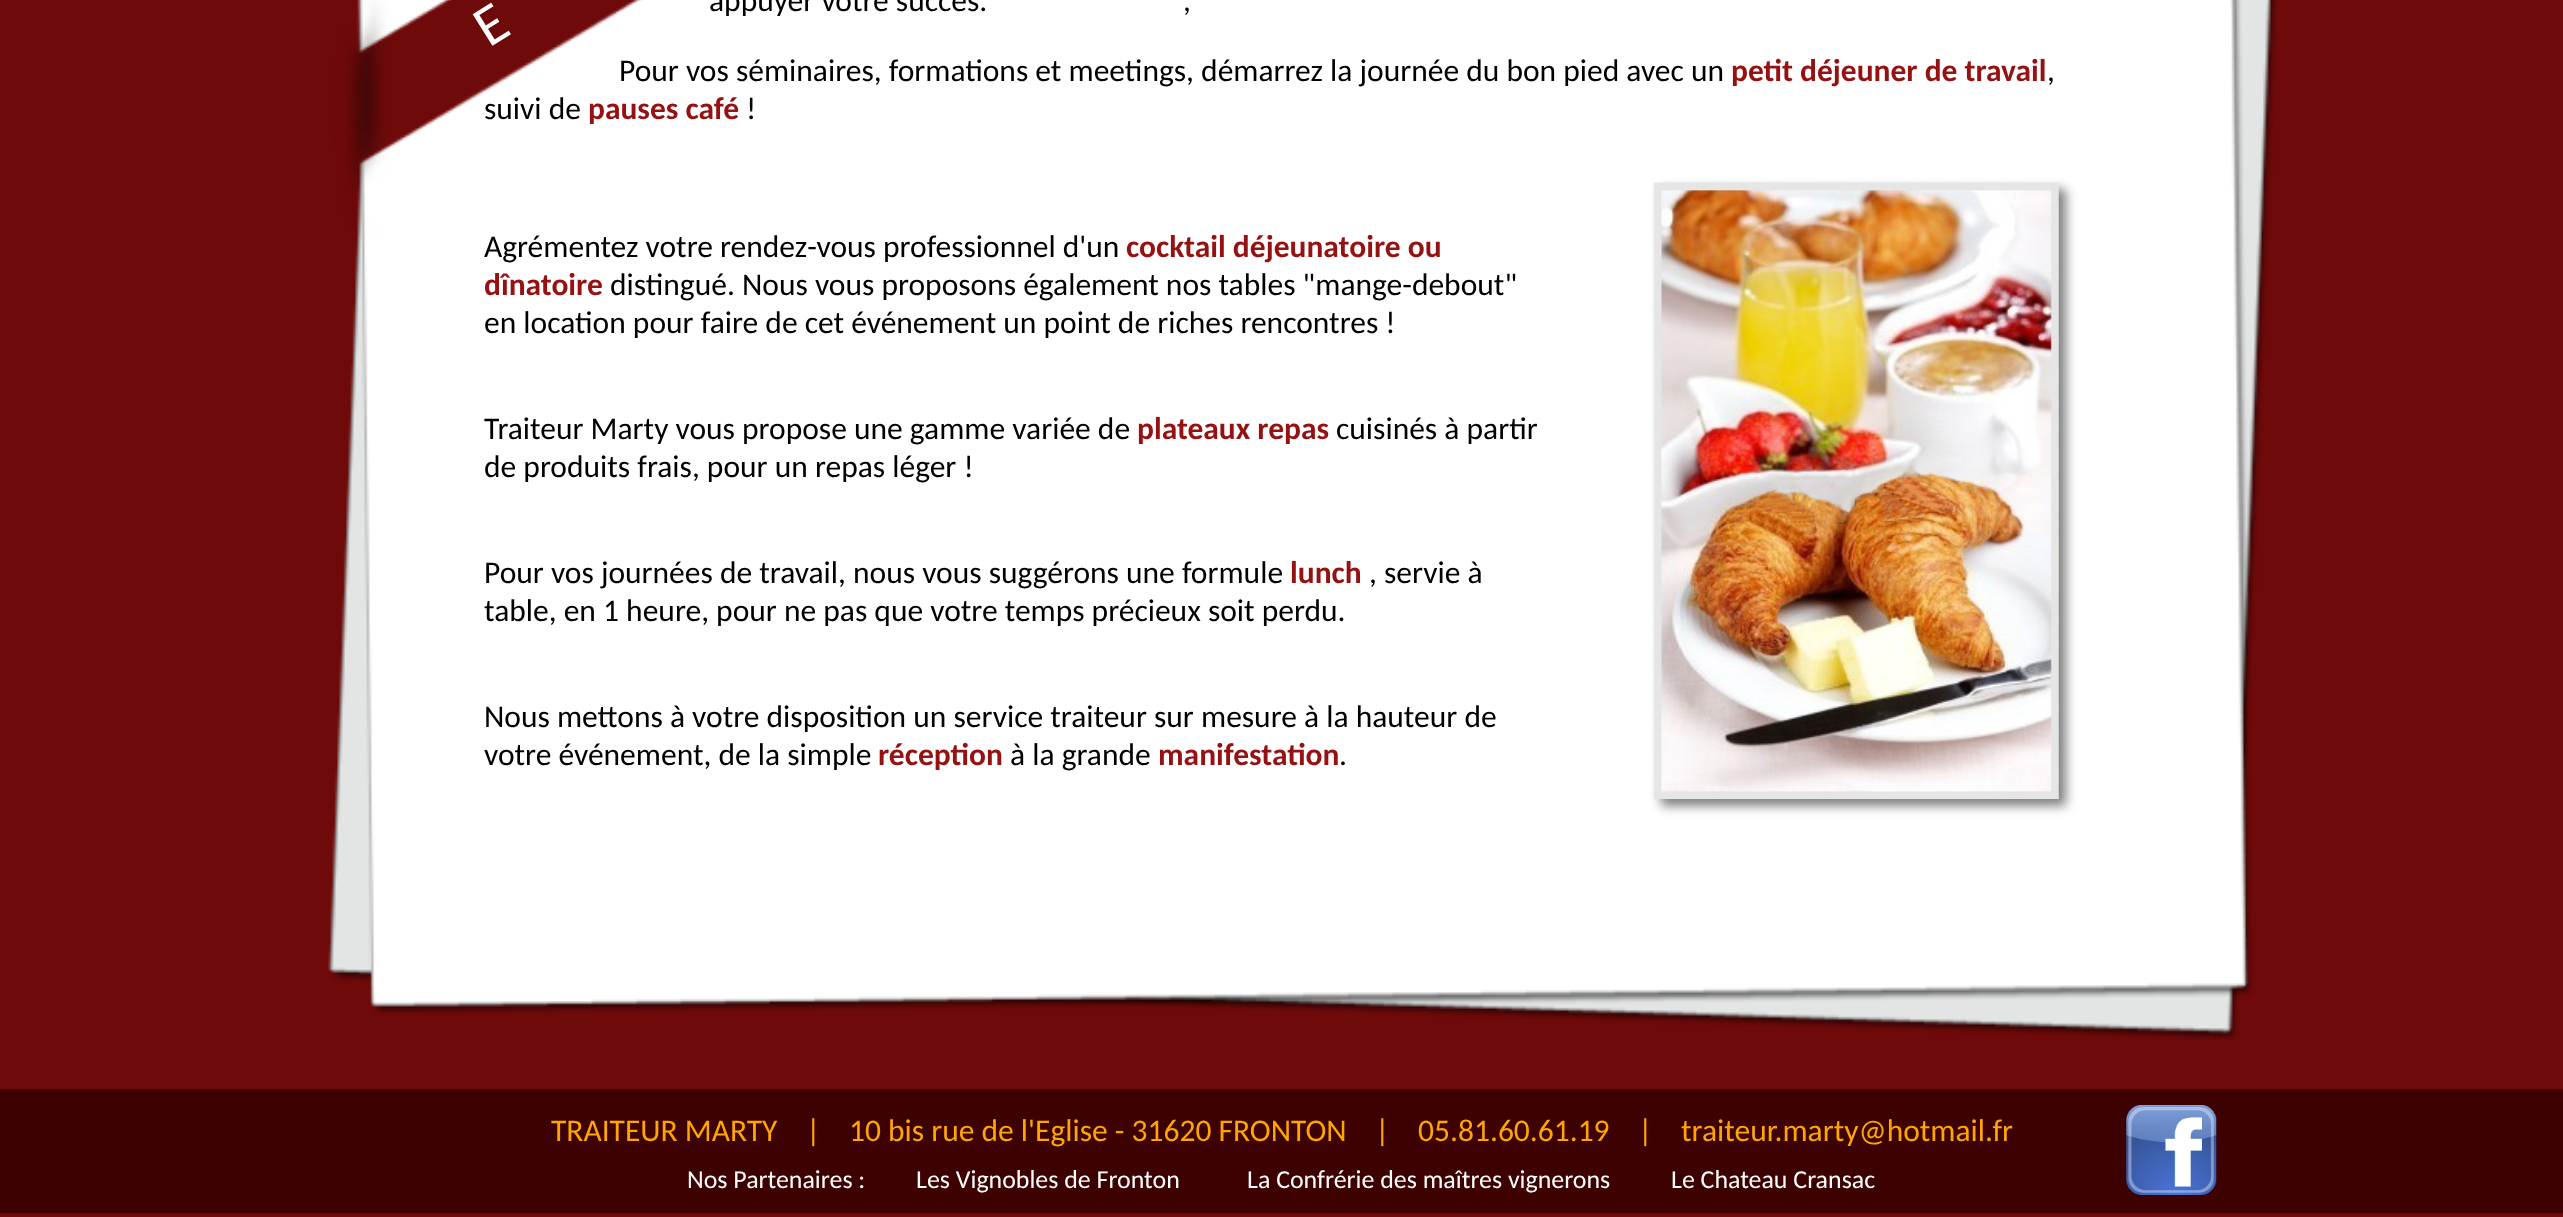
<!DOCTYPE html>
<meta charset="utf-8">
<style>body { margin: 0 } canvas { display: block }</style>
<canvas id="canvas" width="2563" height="1217"></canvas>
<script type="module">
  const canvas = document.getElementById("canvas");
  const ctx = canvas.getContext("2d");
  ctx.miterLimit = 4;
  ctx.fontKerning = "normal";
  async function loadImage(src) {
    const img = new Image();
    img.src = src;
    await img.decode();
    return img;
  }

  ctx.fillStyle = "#6f0a0a";
  ctx.fillRect(0, 0, 2563, 1217);
  ctx.drawImage(await loadImage("img1.png"), 328, 0, 1949, 1040);
  ctx.font = "31.5px Carlito";
  ctx.fillStyle = "#000000";
  ctx.fillText("appuyer votre succès.", 709, 11);
  ctx.fillText(",", 1183, 11);
  ctx.fillText("Pour vos séminaires, formations et meetings, démarrez la journée du bon pied avec un", 619, 81);
  ctx.font = "bold 31.5px Carlito";
  ctx.fillStyle = "#961212";
  ctx.fillText("petit déjeuner de travail", 1731, 81);
  ctx.font = "31.5px Carlito";
  ctx.fillStyle = "#000000";
  ctx.fillText(",", 2047, 81);
  ctx.fillText("suivi de", 484, 119);
  ctx.font = "bold 31.5px Carlito";
  ctx.fillStyle = "#961212";
  ctx.fillText("pauses café", 588, 119);
  ctx.font = "31.5px Carlito";
  ctx.fillStyle = "#000000";
  ctx.fillText("!", 746, 119);
  ctx.fillText("Agrémentez votre rendez-vous professionnel d'un", 484, 257);
  ctx.font = "bold 31.5px Carlito";
  ctx.fillStyle = "#961212";
  ctx.fillText("cocktail déjeunatoire ou", 1126, 257);
  ctx.fillText("dînatoire", 484, 295);
  ctx.font = "31.5px Carlito";
  ctx.fillStyle = "#000000";
  ctx.fillText("distingué. Nous vous proposons également nos tables \"mange-debout\"", 610, 295);
  ctx.fillText("en location pour faire de cet événement un point de riches rencontres !", 484, 333);
  ctx.fillText("Traiteur Marty vous propose une gamme variée de", 484, 439);
  ctx.font = "bold 31.5px Carlito";
  ctx.fillStyle = "#961212";
  ctx.fillText("plateaux repas", 1137, 439);
  ctx.font = "31.5px Carlito";
  ctx.fillStyle = "#000000";
  ctx.fillText("cuisinés à partir", 1336, 439);
  ctx.fillText("de produits frais, pour un repas léger !", 484, 477);
  ctx.fillText("Pour vos journées de travail, nous vous suggérons une formule", 484, 583);
  ctx.font = "bold 31.5px Carlito";
  ctx.fillStyle = "#961212";
  ctx.fillText("lunch", 1290, 583);
  ctx.font = "31.5px Carlito";
  ctx.fillStyle = "#000000";
  ctx.fillText(", servie à", 1369, 583);
  ctx.fillText("table, en 1 heure, pour ne pas que votre temps précieux soit perdu.", 484, 621);
  ctx.fillText("Nous mettons à votre disposition un service traiteur sur mesure à la hauteur de", 484, 727);
  ctx.fillText("votre événement, de la simple", 484, 765);
  ctx.font = "bold 31.5px Carlito";
  ctx.fillStyle = "#961212";
  ctx.fillText("réception", 878, 765);
  ctx.font = "31.5px Carlito";
  ctx.fillStyle = "#000000";
  ctx.fillText("à la grande", 1010, 765);
  ctx.font = "bold 31.5px Carlito";
  ctx.fillStyle = "#961212";
  ctx.fillText("manifestation", 1158, 765);
  ctx.font = "31.5px Carlito";
  ctx.fillStyle = "#000000";
  ctx.fillText(".", 1339, 765);
  ctx.fillStyle = "#808080";
  ctx.filter = "blur(5.5px)";
  ctx.beginPath();
  ctx.rect(1661, 189, 405, 617);
  ctx.fill();
  ctx.filter = "none";
  ctx.drawImage(await loadImage("img2.png"), 1653, 182, 406, 617);
  ctx.font = "58px Carlito";
  ctx.fillStyle = "#ffffff";
  ctx.save();
  ctx.translate(489, 48);
  ctx.rotate(-32 * Math.PI / 180);
  ctx.fillText("E", 0, 0);
  ctx.restore();
  ctx.fillStyle = "#3d0101";
  ctx.fillRect(0, 1089, 2563, 124);
  ctx.font = "31.5px Carlito";
  ctx.fillStyle = "#ffa500";
  ctx.fillText("TRAITEUR MARTY    |    10 bis rue de l'Eglise - 31620 FRONTON    |    05.81.60.61.19    |    traiteur.marty@hotmail.fr", 551, 1141);
  ctx.font = "25.9px Carlito";
  ctx.fillStyle = "#ffffff";
  ctx.fillText("Nos Partenaires :", 687, 1188);
  ctx.fillText("Les Vignobles de Fronton", 916, 1188);
  ctx.fillText("La Confrérie des maîtres vignerons", 1247, 1188);
  ctx.fillText("Le Chateau Cransac", 1671, 1188);
  ctx.drawImage(await loadImage("img3.png"), 2126, 1105, 91, 90);
</script>
